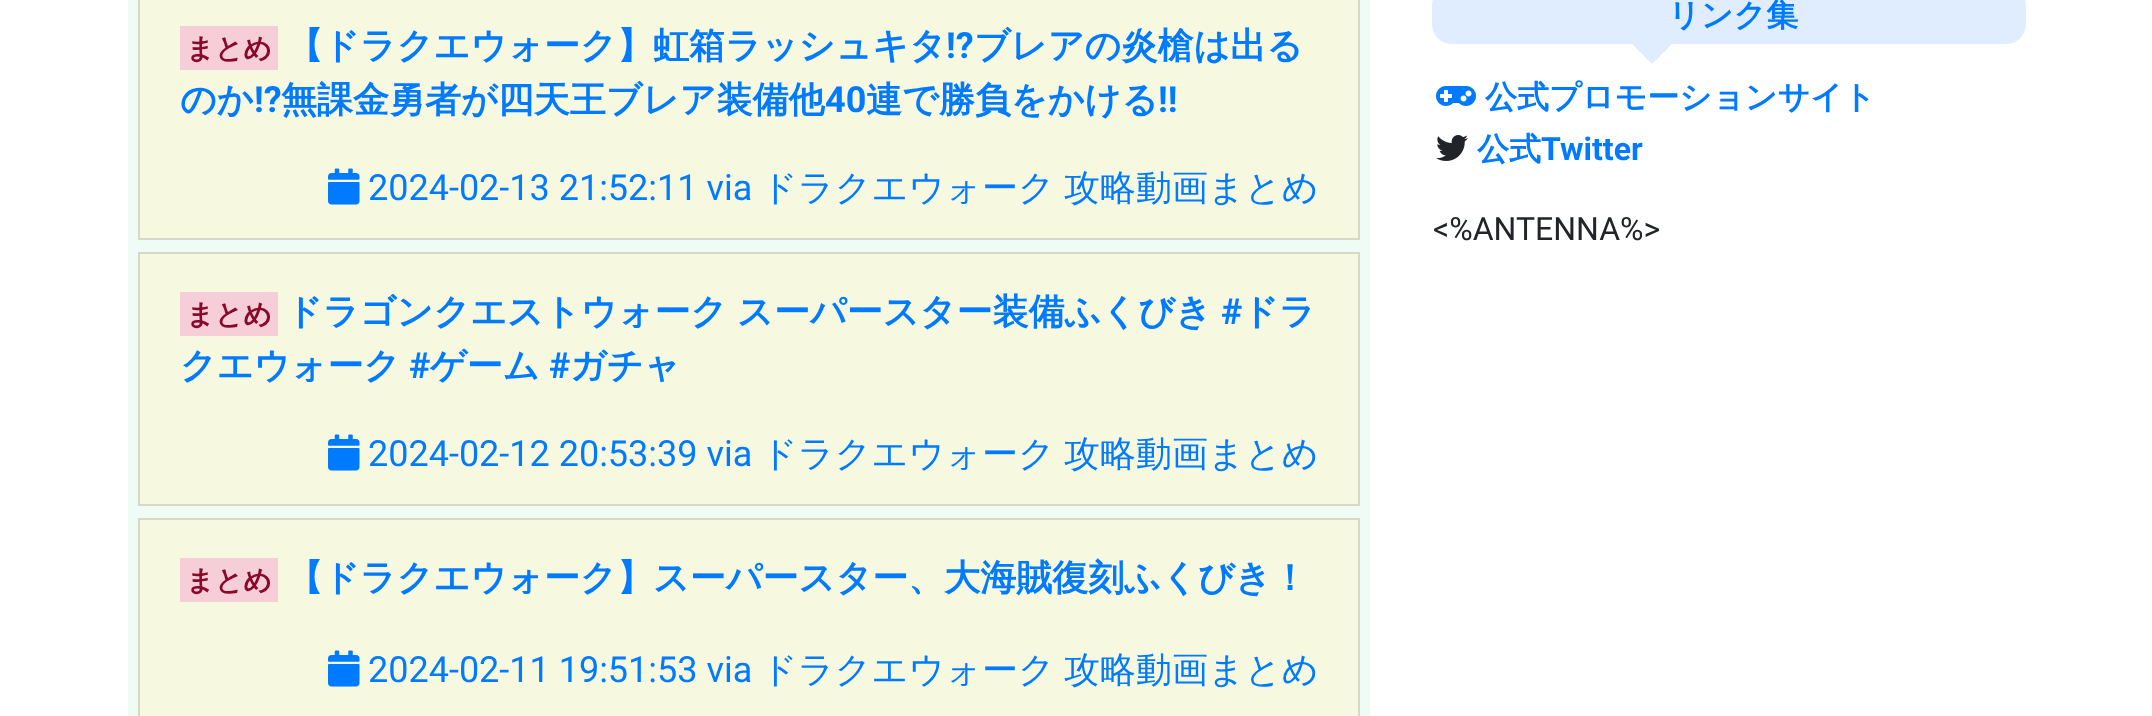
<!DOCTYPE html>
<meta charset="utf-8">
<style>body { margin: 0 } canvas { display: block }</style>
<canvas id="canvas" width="2152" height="716"></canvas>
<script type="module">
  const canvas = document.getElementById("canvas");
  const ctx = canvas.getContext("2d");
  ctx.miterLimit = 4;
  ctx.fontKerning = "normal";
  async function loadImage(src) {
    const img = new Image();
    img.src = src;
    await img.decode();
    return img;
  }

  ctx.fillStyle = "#ffffff";
  ctx.fillRect(0, 0, 2152, 716);
  ctx.fillStyle = "#effbf5";
  ctx.fillRect(128, 0, 1242, 716);
  ctx.fillStyle = "#f7f8e0";
  ctx.beginPath();
  ctx.rect(139, -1, 1220, 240);
  ctx.fill();
  ctx.strokeStyle = "#d8d9c4";
  ctx.lineWidth = 2;
  ctx.stroke();
  ctx.fillStyle = "#f6ced8";
  ctx.fillRect(180, 26, 98, 44);
  ctx.font = "bold 28px WenQuanYi Zen Hei";
  ctx.fillStyle = "#8a0829";
  ctx.fillText("まとめ", 186, 58);
  ctx.font = "bold 36px WenQuanYi Zen Hei";
  ctx.fillStyle = "#007bff";
  ctx.fillText("【ドラクエウォーク】虹箱ラッシュキタ", 287, 58);
  ctx.font = "bold 36px Roboto";
  ctx.fillText("!?", 946, 58);
  ctx.font = "bold 36px WenQuanYi Zen Hei";
  ctx.fillText("ブレアの炎槍は出る", 974, 58);
  ctx.fillText("のか", 180, 112);
  ctx.font = "bold 36px Roboto";
  ctx.fillText("!?", 254, 112);
  ctx.font = "bold 36px WenQuanYi Zen Hei";
  ctx.fillText("無課金勇者が四天王ブレア装備他", 281, 112);
  ctx.font = "bold 36px Roboto";
  ctx.fillText("40", 825, 112);
  ctx.font = "bold 36px WenQuanYi Zen Hei";
  ctx.fillText("連で勝負をかける", 866, 112);
  ctx.font = "bold 36px Roboto";
  ctx.fillText("!!", 1158, 112);
  ctx.drawImage(await loadImage("img1.png"), 328, 168, 32, 37);
  ctx.font = "36px Roboto";
  ctx.fillText("2024-02-13 21:52:11 via", 368, 200);
  ctx.font = "500 36px WenQuanYi Zen Hei";
  ctx.fillText("ドラクエウォーク", 761, 200);
  ctx.fillText("攻略動画まとめ", 1064, 200);
  ctx.fillStyle = "#f7f8e0";
  ctx.beginPath();
  ctx.rect(139, 253, 1220, 252);
  ctx.fill();
  ctx.stroke();
  ctx.fillStyle = "#f6ced8";
  ctx.fillRect(180, 292, 98, 44);
  ctx.font = "bold 28px WenQuanYi Zen Hei";
  ctx.fillStyle = "#8a0829";
  ctx.fillText("まとめ", 186, 324);
  ctx.wordSpacing = "-1px";
  ctx.font = "bold 36px WenQuanYi Zen Hei";
  ctx.fillStyle = "#007bff";
  ctx.fillText("ドラゴンクエストウォーク スーパースター装備ふくびき", 286, 324);
  ctx.wordSpacing = "0px";
  ctx.font = "bold 36px Roboto";
  ctx.fillText("#", 1221, 324);
  ctx.font = "bold 36px WenQuanYi Zen Hei";
  ctx.fillText("ドラ", 1242, 324);
  ctx.fillText("クエウォーク", 180, 378);
  ctx.font = "bold 36px Roboto";
  ctx.fillText("#", 409, 378);
  ctx.font = "bold 36px WenQuanYi Zen Hei";
  ctx.fillText("ゲーム", 430, 378);
  ctx.font = "bold 36px Roboto";
  ctx.fillText("#", 549, 378);
  ctx.font = "bold 36px WenQuanYi Zen Hei";
  ctx.fillText("ガチャ", 570, 378);
  ctx.drawImage(await loadImage("img1.png"), 328, 434, 32, 37);
  ctx.font = "36px Roboto";
  ctx.fillText("2024-02-12 20:53:39 via", 368, 466);
  ctx.font = "500 36px WenQuanYi Zen Hei";
  ctx.fillText("ドラクエウォーク", 761, 466);
  ctx.fillText("攻略動画まとめ", 1064, 466);
  ctx.fillStyle = "#f7f8e0";
  ctx.beginPath();
  ctx.rect(139, 519, 1220, 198);
  ctx.fill();
  ctx.stroke();
  ctx.fillStyle = "#f6ced8";
  ctx.fillRect(180, 558, 98, 44);
  ctx.font = "bold 28px WenQuanYi Zen Hei";
  ctx.fillStyle = "#8a0829";
  ctx.fillText("まとめ", 186, 590);
  ctx.font = "bold 36px WenQuanYi Zen Hei";
  ctx.fillStyle = "#007bff";
  ctx.fillText("【ドラクエウォーク】スーパースター、大海賊復刻ふくびき！", 287, 590);
  ctx.drawImage(await loadImage("img1.png"), 328, 650, 32, 37);
  ctx.font = "36px Roboto";
  ctx.fillText("2024-02-11 19:51:53 via", 368, 682);
  ctx.font = "500 36px WenQuanYi Zen Hei";
  ctx.fillText("ドラクエウォーク", 761, 682);
  ctx.fillText("攻略動画まとめ", 1064, 682);
  ctx.fillStyle = "#e0edff";
  ctx.beginPath();
  ctx.roundRect(1432, -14, 594, 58, 20);
  ctx.fill();
  ctx.font = "bold 32px WenQuanYi Zen Hei";
  ctx.fillStyle = "#007bff";
  ctx.fillText("リンク集", 1668, 26);
  ctx.fillStyle = "#e0edff";
  ctx.beginPath();
  ctx.moveTo(1632, 44);
  ctx.lineTo(1672, 44);
  ctx.lineTo(1652, 64);
  ctx.closePath();
  ctx.fill();
  ctx.drawImage(await loadImage("img2.png"), 1436, 86, 40, 20);
  ctx.fillStyle = "#007bff";
  ctx.fillText("公式プロモーションサイト", 1485, 108);
  ctx.drawImage(await loadImage("img3.png"), 1436, 135, 32, 26);
  ctx.fillText("公式", 1477, 160);
  ctx.font = "bold 32px Roboto";
  ctx.fillText("Twitter", 1541, 160);
  ctx.font = "32px Roboto";
  ctx.fillStyle = "#212529";
  ctx.fillText("<%ANTENNA%>", 1433, 240);
</script>
